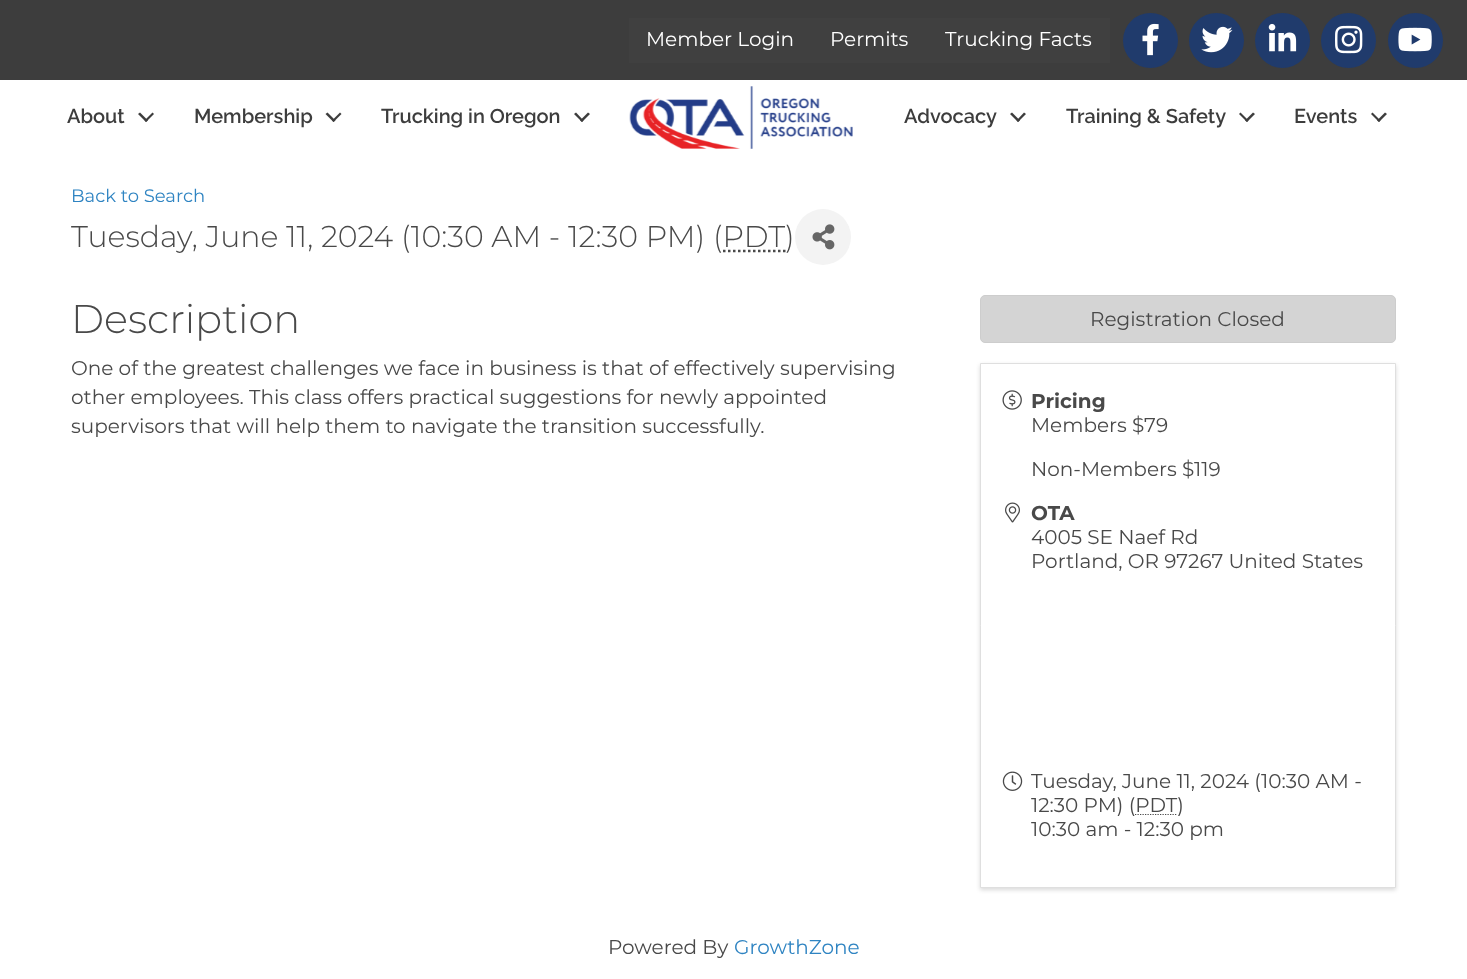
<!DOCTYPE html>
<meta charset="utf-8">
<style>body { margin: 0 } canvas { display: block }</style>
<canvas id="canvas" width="1467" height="979"></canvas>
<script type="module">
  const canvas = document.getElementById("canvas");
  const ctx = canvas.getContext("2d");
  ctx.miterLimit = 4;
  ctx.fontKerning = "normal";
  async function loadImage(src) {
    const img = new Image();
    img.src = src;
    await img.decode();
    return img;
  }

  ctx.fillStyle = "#ffffff";
  ctx.fillRect(0, 0, 1467, 979);
  ctx.fillStyle = "#3d3d3d";
  ctx.fillRect(0, 0, 1467, 80);
  ctx.fillStyle = "#404040";
  ctx.fillRect(629, 18, 481, 45);
  ctx.font = "20px Montserrat";
  ctx.fillStyle = "#ffffff";
  ctx.fillText("Member Login", 646, 46);
  ctx.fillText("Permits", 830, 46);
  ctx.fillText("Trucking Facts", 945, 46);
  ctx.fillStyle = "#203b6c";
  ctx.beginPath();
  ctx.arc(1150.5, 40.5, 27.5, 0, Math.PI * 2);
  ctx.fill();
  ctx.drawImage(await loadImage("img1.png"), 1142, 23, 17, 33);
  ctx.beginPath();
  ctx.arc(1216.5, 40.5, 27.5, 0, Math.PI * 2);
  ctx.fill();
  ctx.drawImage(await loadImage("img2.png"), 1201, 26, 32, 27);
  ctx.beginPath();
  ctx.arc(1282.5, 40.5, 27.5, 0, Math.PI * 2);
  ctx.fill();
  ctx.drawImage(await loadImage("img3.png"), 1268, 23, 29, 29);
  ctx.beginPath();
  ctx.arc(1348.5, 40.5, 27.5, 0, Math.PI * 2);
  ctx.fill();
  ctx.drawImage(await loadImage("img4.png"), 1335, 25, 28, 29);
  ctx.beginPath();
  ctx.arc(1415.5, 40.5, 27.5, 0, Math.PI * 2);
  ctx.fill();
  ctx.drawImage(await loadImage("img5.png"), 1398, 27, 34, 25);
  ctx.font = "100 20px Raleway";
  ctx.fillStyle = "#3d3d3d";
  ctx.fillText("About", 67, 123);
  ctx.beginPath();
  ctx.moveTo(152.5, 112.5);
  ctx.lineTo(154, 114);
  ctx.lineTo(146, 122);
  ctx.lineTo(144.5, 120.5);
  ctx.closePath();
  ctx.fill();
  ctx.beginPath();
  ctx.moveTo(140, 112.5);
  ctx.lineTo(148, 120.5);
  ctx.lineTo(146, 122);
  ctx.lineTo(138, 114);
  ctx.closePath();
  ctx.fill();
  ctx.fillText("Membership", 194, 123);
  ctx.beginPath();
  ctx.moveTo(340, 112.5);
  ctx.lineTo(341.5, 114);
  ctx.lineTo(333.5, 122);
  ctx.lineTo(332, 120.5);
  ctx.closePath();
  ctx.fill();
  ctx.beginPath();
  ctx.moveTo(327.5, 112.5);
  ctx.lineTo(335.5, 120.5);
  ctx.lineTo(333.5, 122);
  ctx.lineTo(325.5, 114);
  ctx.closePath();
  ctx.fill();
  ctx.fillText("Trucking in Oregon", 381, 123);
  ctx.beginPath();
  ctx.moveTo(588, 112.5);
  ctx.lineTo(590, 114);
  ctx.lineTo(582, 122);
  ctx.lineTo(580, 120.5);
  ctx.closePath();
  ctx.fill();
  ctx.beginPath();
  ctx.moveTo(576, 112.5);
  ctx.lineTo(583.5, 120.5);
  ctx.lineTo(582, 122);
  ctx.lineTo(574, 114);
  ctx.closePath();
  ctx.fill();
  ctx.drawImage(await loadImage("img6.png"), 629, 86, 224, 63);
  ctx.fillText("Advocacy", 904, 123);
  ctx.beginPath();
  ctx.moveTo(1024, 112.5);
  ctx.lineTo(1026, 114);
  ctx.lineTo(1018, 122);
  ctx.lineTo(1016.5, 120.5);
  ctx.closePath();
  ctx.fill();
  ctx.beginPath();
  ctx.moveTo(1012, 112.5);
  ctx.lineTo(1020, 120.5);
  ctx.lineTo(1018, 122);
  ctx.lineTo(1010, 114);
  ctx.closePath();
  ctx.fill();
  ctx.fillText("Training & Safety", 1066, 123);
  ctx.beginPath();
  ctx.moveTo(1253, 112.5);
  ctx.lineTo(1255, 114);
  ctx.lineTo(1247, 122);
  ctx.lineTo(1245, 120.5);
  ctx.closePath();
  ctx.fill();
  ctx.beginPath();
  ctx.moveTo(1240.5, 112.5);
  ctx.lineTo(1248.5, 120.5);
  ctx.lineTo(1247, 122);
  ctx.lineTo(1239, 114);
  ctx.closePath();
  ctx.fill();
  ctx.fillText("Events", 1294, 123);
  ctx.beginPath();
  ctx.moveTo(1385, 112.5);
  ctx.lineTo(1387, 114);
  ctx.lineTo(1379, 122);
  ctx.lineTo(1377, 120.5);
  ctx.closePath();
  ctx.fill();
  ctx.beginPath();
  ctx.moveTo(1372.5, 112.5);
  ctx.lineTo(1380.5, 120.5);
  ctx.lineTo(1379, 122);
  ctx.lineTo(1371, 114);
  ctx.closePath();
  ctx.fill();
  ctx.font = "18px Montserrat";
  ctx.fillStyle = "#2f84c2";
  ctx.fillText("Back to Search", 71, 202);
  ctx.font = "300 30px Montserrat";
  ctx.fillStyle = "#494949";
  ctx.fillText("Tuesday, June 11, 2024 (10:30 AM - 12:30 PM) (PDT)", 71, 247);
  ctx.beginPath();
  ctx.moveTo(723, 251);
  ctx.lineTo(785.5, 251);
  ctx.strokeStyle = "#494949";
  ctx.lineWidth = 2.5;
  ctx.setLineDash([2.5, 2.5]);
  ctx.stroke();
  ctx.fillStyle = "#f3f3f3";
  ctx.beginPath();
  ctx.arc(823, 237, 28, 0, Math.PI * 2);
  ctx.fill();
  ctx.drawImage(await loadImage("img7.png"), 812, 224, 23, 26);
  ctx.font = "300 40px Montserrat";
  ctx.fillStyle = "#494949";
  ctx.fillText("Description", 71, 333);
  ctx.font = "20px Montserrat";
  ctx.fillText("One of the greatest challenges we face in business is that of effectively supervising", 71, 375);
  ctx.fillText("other employees. This class offers practical suggestions for newly appointed", 71, 404);
  ctx.fillText("supervisors that will help them to navigate the transition successfully.", 71, 433);
  ctx.fillStyle = "#d4d4d4";
  ctx.beginPath();
  ctx.roundRect(980.5, 295.5, 415, 47, 4.5);
  ctx.fill();
  ctx.strokeStyle = "#cdcdcd";
  ctx.lineWidth = 1;
  ctx.setLineDash([]);
  ctx.stroke();
  ctx.fillStyle = "#494949";
  ctx.fillText("Registration Closed", 1090, 326);
  ctx.fillStyle = "rgba(0, 0, 0, 0.15)";
  ctx.filter = "blur(2px)";
  ctx.beginPath();
  ctx.rect(980, 365, 416, 525);
  ctx.fill();
  ctx.filter = "none";
  ctx.fillStyle = "#ffffff";
  ctx.beginPath();
  ctx.rect(980.5, 363.5, 415, 524);
  ctx.fill();
  ctx.strokeStyle = "#dfdfdf";
  ctx.stroke();
  ctx.drawImage(await loadImage("img8.png"), 1002, 390, 20, 20);
  ctx.font = "bold 20px Montserrat";
  ctx.fillStyle = "#494949";
  ctx.fillText("Pricing", 1031, 408);
  ctx.font = "20px Montserrat";
  ctx.fillText("Members $79", 1031, 432);
  ctx.fillText("Non-Members $119", 1031, 476);
  ctx.drawImage(await loadImage("img9.png"), 1005, 502, 15, 21);
  ctx.font = "bold 20px Montserrat";
  ctx.fillText("OTA", 1031, 520);
  ctx.font = "20px Montserrat";
  ctx.fillText("4005 SE Naef Rd", 1031, 544);
  ctx.fillText("Portland, OR 97267 United States", 1031, 568);
  ctx.drawImage(await loadImage("img10.png"), 1002, 771, 21, 20);
  ctx.fillText("Tuesday, June 11, 2024 (10:30 AM -", 1031, 788);
  ctx.fillText("12:30 PM) (PDT)", 1031, 812);
  ctx.beginPath();
  ctx.moveTo(1135, 814.5);
  ctx.lineTo(1177, 814.5);
  ctx.strokeStyle = "#494949";
  ctx.lineWidth = 1.2;
  ctx.setLineDash([1.25, 1.25]);
  ctx.stroke();
  ctx.fillText("10:30 am - 12:30 pm", 1031, 836);
  ctx.fillText("Powered By", 608, 954);
  ctx.fillStyle = "#2f84c2";
  ctx.fillText("GrowthZone", 734, 954);
</script>
